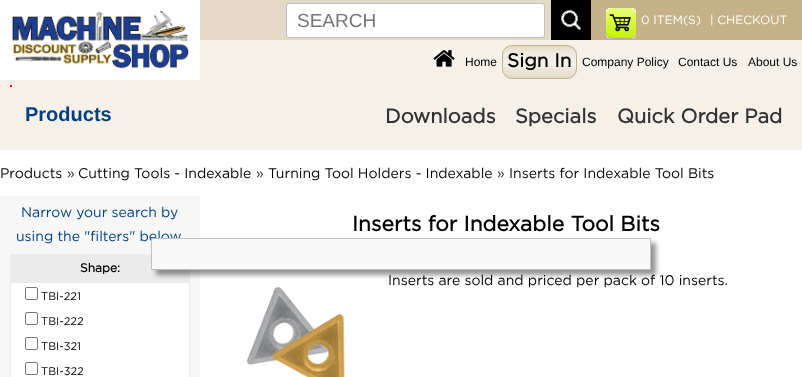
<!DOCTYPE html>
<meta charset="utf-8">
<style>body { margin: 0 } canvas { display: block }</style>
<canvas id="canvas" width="802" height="377"></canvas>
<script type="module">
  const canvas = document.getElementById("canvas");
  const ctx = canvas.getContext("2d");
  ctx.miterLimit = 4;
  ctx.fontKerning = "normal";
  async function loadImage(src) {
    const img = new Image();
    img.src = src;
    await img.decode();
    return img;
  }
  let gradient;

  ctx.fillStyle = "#ffffff";
  ctx.fillRect(0, 0, 802, 377);
  ctx.fillStyle = "#e3d9c6";
  ctx.fillRect(200, 0, 351, 40);
  ctx.fillStyle = "#f5f1e9";
  ctx.fillRect(200, 40, 602, 40);
  ctx.drawImage(await loadImage("img1.png"), 11, 10, 178, 59);
  ctx.fillStyle = "#ffffff";
  ctx.beginPath();
  ctx.roundRect(286.5, 3.5, 258, 34, 2.5);
  ctx.fill();
  ctx.strokeStyle = "#c0c0c0";
  ctx.stroke();
  ctx.font = "19px Liberation Sans";
  ctx.fillStyle = "#757575";
  ctx.fillText("SEARCH", 297, 27);
  ctx.drawImage(await loadImage("img2.png"), 551, 0, 40, 40);
  ctx.fillStyle = "#c6b188";
  ctx.fillRect(591, 0, 211, 40);
  ctx.drawImage(await loadImage("img3.png"), 606, 8, 30, 31);
  ctx.font = "12px Gotham";
  ctx.fillStyle = "#ffffff";
  ctx.fillText("0 ITEM(S)", 641, 24);
  ctx.fillText("| CHECKOUT", 710, 24);
  ctx.drawImage(await loadImage("img4.png"), 433, 50, 22, 17);
  ctx.font = "12px Liberation Sans";
  ctx.fillStyle = "#000000";
  ctx.fillText("Home", 465, 66);
  ctx.save();
  ctx.beginPath();
  ctx.roundRect(502, 45, 75, 34, 10);
  ctx.clip();
  gradient = ctx.createLinearGradient(540, 46, 540, 78);
  gradient.addColorStop(0, "#e3d9c6");
  gradient.addColorStop(0.19, "#eee8dd");
  gradient.addColorStop(0.57, "#f5f1e9");
  gradient.addColorStop(1, "#e3d9c6");
  ctx.fillStyle = gradient;
  ctx.fillRect(502, 46, 75, 32);
  ctx.restore();
  ctx.beginPath();
  ctx.roundRect(502.5, 45.5, 74, 33, 9.5);
  ctx.strokeStyle = "#c6b188";
  ctx.stroke();
  ctx.font = "bold 19px Gotham";
  ctx.fillText("Sign In", 507, 67);
  ctx.font = "12px Liberation Sans";
  ctx.fillText("Company Policy", 582, 66);
  ctx.fillText("Contact Us", 678, 66);
  ctx.fillText("About Us", 748, 66);
  ctx.fillStyle = "#f5f1e9";
  ctx.fillRect(0, 80, 802, 70);
  ctx.fillStyle = "#ff0000";
  ctx.fillRect(10, 85, 2, 2);
  ctx.font = "bold 20px Liberation Sans";
  ctx.fillStyle = "#004080";
  ctx.fillText("Products", 25, 121);
  ctx.font = "bold 20px Gotham";
  ctx.fillStyle = "#333333";
  ctx.fillText("Downloads", 385, 123);
  ctx.fillText("Specials", 515, 123);
  ctx.fillText("Quick Order Pad", 617, 123);
  ctx.font = "14px Gotham";
  ctx.fillStyle = "#000000";
  ctx.fillText("Products", 0, 178);
  ctx.fillStyle = "#333333";
  ctx.fillText("»", 67, 178);
  ctx.fillStyle = "#000000";
  ctx.fillText("Cutting Tools - Indexable", 78, 178);
  ctx.fillStyle = "#333333";
  ctx.fillText("»", 256, 178);
  ctx.fillStyle = "#000000";
  ctx.fillText("Turning Tool Holders - Indexable", 268, 178);
  ctx.fillStyle = "#333333";
  ctx.fillText("»", 497, 178);
  ctx.fillStyle = "#000000";
  ctx.fillText("Inserts for Indexable Tool Bits", 509, 178);
  ctx.fillStyle = "#f7f7f7";
  ctx.fillRect(0, 196, 200, 181);
  ctx.fillStyle = "#004080";
  ctx.fillText("Narrow your search by", 21, 217);
  ctx.fillText("using the \"filters\" below", 16, 241);
  ctx.fillStyle = "#ebebeb";
  ctx.fillRect(10, 254, 180, 28);
  ctx.font = "bold 12px Gotham";
  ctx.fillStyle = "#000000";
  ctx.fillText("Shape:", 80, 272);
  ctx.fillStyle = "#ffffff";
  ctx.beginPath();
  ctx.rect(10.5, 282.5, 179, 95);
  ctx.fill();
  ctx.strokeStyle = "#ebebeb";
  ctx.stroke();
  ctx.beginPath();
  ctx.roundRect(25.5, 287.5, 12, 12, 1.5);
  ctx.strokeStyle = "#767676";
  ctx.stroke();
  ctx.font = "11px Gotham";
  ctx.fillStyle = "#000000";
  ctx.fillText("TBI-221", 41, 300);
  ctx.beginPath();
  ctx.roundRect(25.5, 312.5, 12, 12, 1.5);
  ctx.stroke();
  ctx.fillText("TBI-222", 41, 325);
  ctx.beginPath();
  ctx.roundRect(25.5, 337.5, 12, 12, 1.5);
  ctx.stroke();
  ctx.fillText("TBI-321", 41, 350);
  ctx.beginPath();
  ctx.roundRect(25.5, 362.5, 12, 12, 1.5);
  ctx.stroke();
  ctx.fillText("TBI-322", 41, 375);
  ctx.font = "bold 21px Gotham";
  ctx.fillText("Inserts for Indexable Tool Bits", 352, 231);
  ctx.font = "14px Gotham";
  ctx.fillText("Inserts are sold and priced per pack of 10 inserts.", 388, 285);
  ctx.drawImage(await loadImage("img5.png"), 246, 286, 99, 91);
  ctx.fillStyle = "rgba(0, 0, 0, 0.42)";
  ctx.filter = "blur(2.5px)";
  ctx.beginPath();
  ctx.rect(156, 243, 500, 32);
  ctx.fill();
  ctx.filter = "none";
  ctx.fillStyle = "#f9f9f9";
  ctx.beginPath();
  ctx.rect(151.5, 238.5, 499, 31);
  ctx.fill();
  ctx.strokeStyle = "#c0c0c0";
  ctx.stroke();
</script>
